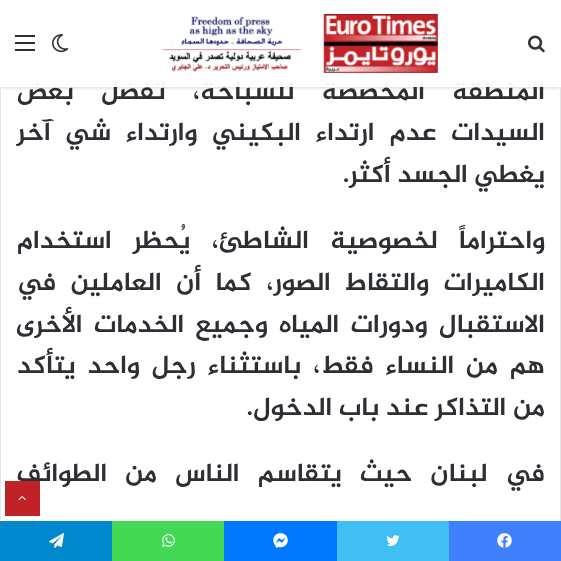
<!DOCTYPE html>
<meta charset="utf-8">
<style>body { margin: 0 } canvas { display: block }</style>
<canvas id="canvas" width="561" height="561"></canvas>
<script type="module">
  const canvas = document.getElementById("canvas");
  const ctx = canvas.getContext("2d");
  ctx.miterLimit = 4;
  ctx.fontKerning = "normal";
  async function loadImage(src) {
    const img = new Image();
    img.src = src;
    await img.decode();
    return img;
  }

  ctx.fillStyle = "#ffffff";
  ctx.fillRect(0, 0, 561, 561);
  ctx.strokeStyle = "#e6e6e6";
  ctx.strokeRect(0.5, -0.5, 560, 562);
  ctx.save();
  ctx.beginPath();
  ctx.rect(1, 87, 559, 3);
  ctx.clip();
  ctx.fillStyle = "rgba(0, 0, 0, 0.1)";
  ctx.filter = "blur(1px)";
  ctx.beginPath();
  ctx.rect(2, 6, 557, 83);
  ctx.fill();
  ctx.filter = "none";
  ctx.restore();
  ctx.wordSpacing = "20.5px";
  ctx.direction = "rtl";
  ctx.font = "bold 26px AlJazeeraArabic";
  ctx.fillStyle = "#2c2f34";
  ctx.fillText("المنطقة المخصصة للسباحة، تفضل بعض", 545, 99);
  ctx.fillStyle = "rgba(255, 255, 255, 0.95)";
  ctx.fillRect(0, 0, 561, 87);
  ctx.drawImage(await loadImage("img1.png"), 528, 35, 17, 18);
  ctx.drawImage(await loadImage("img2.png"), 123, 14, 315, 59);
  ctx.drawImage(await loadImage("img3.png"), 52, 34, 17, 19);
  ctx.fillStyle = "#2c2f34";
  ctx.fillRect(15, 42, 20, 2);
  ctx.fillRect(15, 35, 20, 2);
  ctx.fillRect(15, 49, 20, 2);
  ctx.wordSpacing = "8px";
  ctx.fillText("السيدات عدم ارتداء البكيني وارتداء شي آخر", 545, 140);
  ctx.wordSpacing = "0px";
  ctx.fillText("يغطي الجسد أكثر.", 545, 182);
  ctx.wordSpacing = "14.5px";
  ctx.fillText("واحتراماً لخصوصية الشاطئ، يُحظر استخدام", 545, 248);
  ctx.wordSpacing = "7.75px";
  ctx.fillText("الكاميرات والتقاط الصور، كما أن العاملين في", 545, 290);
  ctx.wordSpacing = "4.5px";
  ctx.fillText("الاستقبال ودورات المياه وجميع الخدمات الأخرى", 545, 332);
  ctx.wordSpacing = "5px";
  ctx.fillText("هم من النساء فقط، باستثناء رجل واحد يتأكد", 545, 373);
  ctx.wordSpacing = "0px";
  ctx.fillText("من التذاكر عند باب الدخول.", 545, 415);
  ctx.wordSpacing = "11.25px";
  ctx.fillText("في لبنان حيث يتقاسم الناس من الطوائف", 545, 481);
  ctx.fillStyle = "#c02227";
  ctx.fillRect(5, 481, 35, 35);
  ctx.drawImage(await loadImage("img4.png"), 18, 495, 8, 6);
  ctx.fillStyle = "#4080ff";
  ctx.fillRect(449, 521, 112, 40);
  ctx.drawImage(await loadImage("img5.png"), 497, 533, 15, 15);
  ctx.fillStyle = "#40bff5";
  ctx.fillRect(337, 521, 112, 40);
  ctx.drawImage(await loadImage("img6.png"), 386, 535, 14, 11);
  ctx.fillStyle = "#0078ff";
  ctx.fillRect(224, 521, 113, 40);
  ctx.drawImage(await loadImage("img7.png"), 273, 533, 15, 15);
  ctx.fillStyle = "#43d854";
  ctx.fillRect(112, 521, 112, 40);
  ctx.drawImage(await loadImage("img8.png"), 162, 534, 13, 13);
  ctx.fillStyle = "#0088cc";
  ctx.fillRect(0, 521, 112, 40);
  ctx.drawImage(await loadImage("img9.png"), 49, 533, 15, 15);
</script>
